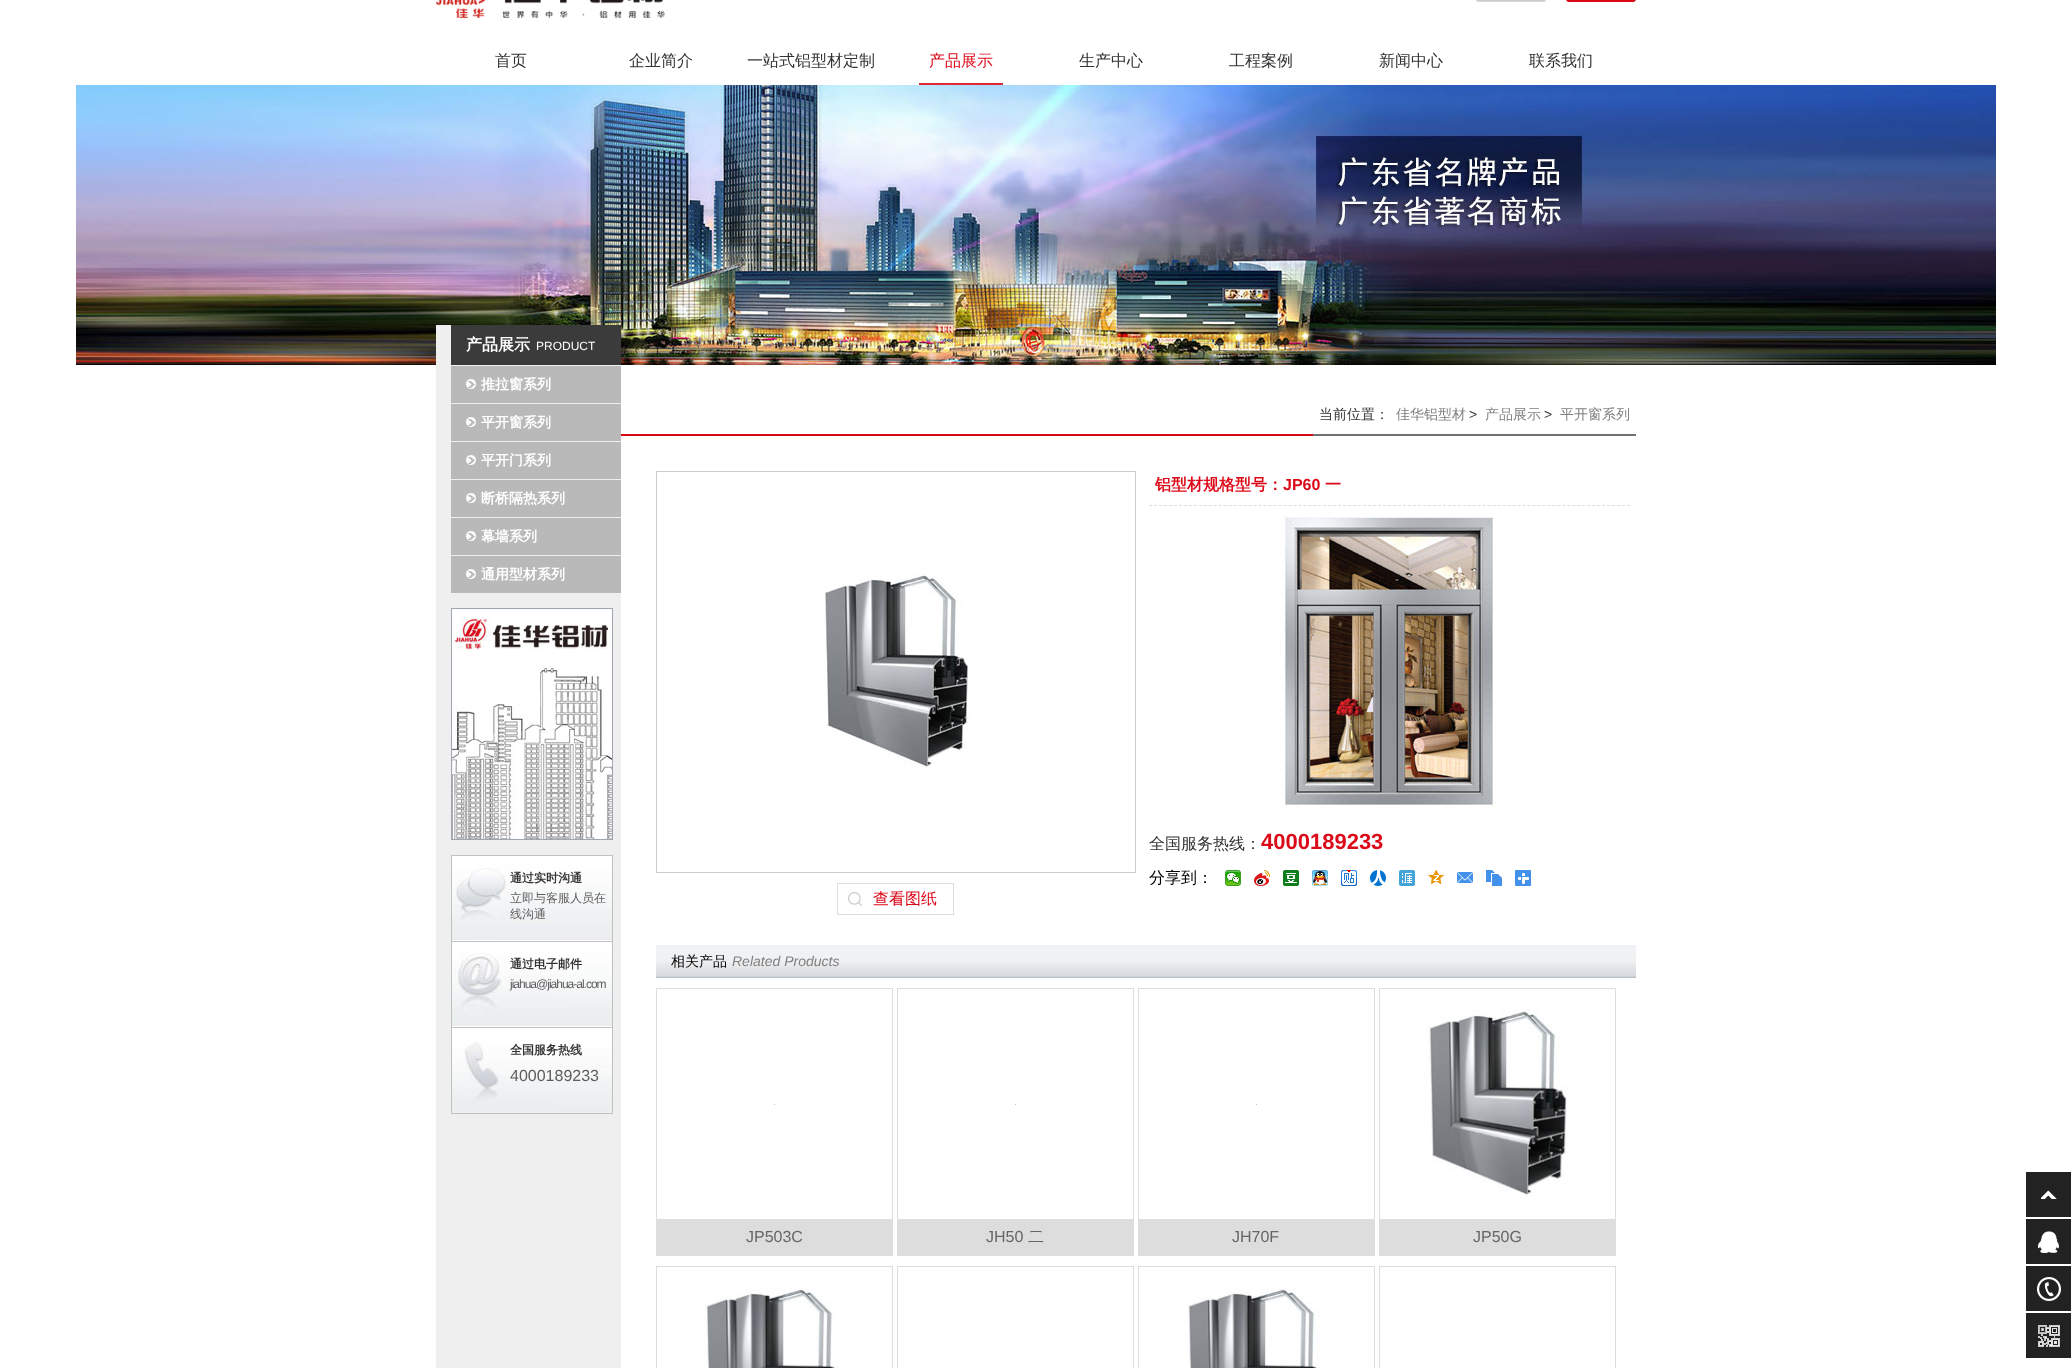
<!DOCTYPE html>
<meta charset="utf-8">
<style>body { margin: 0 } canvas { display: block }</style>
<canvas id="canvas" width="2071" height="1368"></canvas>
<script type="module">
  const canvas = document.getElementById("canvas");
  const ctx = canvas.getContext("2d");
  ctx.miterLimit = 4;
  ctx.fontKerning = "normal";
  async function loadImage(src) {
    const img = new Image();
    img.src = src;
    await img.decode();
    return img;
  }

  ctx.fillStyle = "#ffffff";
  ctx.fillRect(0, 0, 2071, 1368);
  ctx.drawImage(await loadImage("img1.png"), 436, 0, 229, 18);
  ctx.fillStyle = "#cccccc";
  ctx.filter = "blur(0.5px)";
  ctx.beginPath();
  ctx.roundRect(1476, -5, 70, 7, 3);
  ctx.fill();
  ctx.filter = "none";
  ctx.beginPath();
  ctx.roundRect(1476.5, -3.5, 69, 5, 2.5);
  ctx.strokeStyle = "#d7d7d7";
  ctx.stroke();
  ctx.filter = "blur(0.5px)";
  ctx.beginPath();
  ctx.roundRect(1566, -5, 70, 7, 3);
  ctx.fill();
  ctx.filter = "none";
  ctx.fillStyle = "#db0817";
  ctx.beginPath();
  ctx.roundRect(1566.5, -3.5, 69, 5, 2.5);
  ctx.fill();
  ctx.strokeStyle = "#db0817";
  ctx.stroke();
  ctx.font = "500 16px WenQuanYi Zen Hei";
  ctx.fillStyle = "#333333";
  ctx.fillText("首页", 495, 66);
  ctx.fillText("企业简介", 629, 66);
  ctx.fillText("一站式铝型材定制", 747, 66);
  ctx.fillStyle = "#e02835";
  ctx.fillRect(919, 83, 84, 2);
  ctx.fillStyle = "#dc0919";
  ctx.fillText("产品展示", 929, 66);
  ctx.fillStyle = "#333333";
  ctx.fillText("生产中心", 1079, 66);
  ctx.fillText("工程案例", 1229, 66);
  ctx.fillText("新闻中心", 1379, 66);
  ctx.fillText("联系我们", 1529, 66);
  ctx.drawImage(await loadImage("img2.png"), 76, 85, 1920, 280);
  ctx.fillStyle = "#efefef";
  ctx.fillRect(436, 325, 185, 1043);
  ctx.fillStyle = "#3b3b3b";
  ctx.fillRect(451, 325, 170, 40);
  ctx.font = "bold 16px WenQuanYi Zen Hei";
  ctx.fillStyle = "#ffffff";
  ctx.fillText("产品展示", 466, 350);
  ctx.font = "12px Liberation Sans";
  ctx.fillText("PRODUCT", 536, 350);
  ctx.fillStyle = "#b9b9b9";
  ctx.fillRect(451, 366, 170, 37);
  ctx.drawImage(await loadImage("img3.png"), 466, 379, 10, 10);
  ctx.font = "bold 14px WenQuanYi Zen Hei";
  ctx.fillStyle = "#ffffff";
  ctx.fillText("推拉窗系列", 481, 389);
  ctx.fillStyle = "#b9b9b9";
  ctx.fillRect(451, 404, 170, 37);
  ctx.drawImage(await loadImage("img3.png"), 466, 417, 10, 10);
  ctx.fillStyle = "#ffffff";
  ctx.fillText("平开窗系列", 481, 427);
  ctx.fillStyle = "#b9b9b9";
  ctx.fillRect(451, 442, 170, 37);
  ctx.drawImage(await loadImage("img3.png"), 466, 455, 10, 10);
  ctx.fillStyle = "#ffffff";
  ctx.fillText("平开门系列", 481, 465);
  ctx.fillStyle = "#b9b9b9";
  ctx.fillRect(451, 480, 170, 37);
  ctx.drawImage(await loadImage("img3.png"), 466, 493, 10, 10);
  ctx.fillStyle = "#ffffff";
  ctx.fillText("断桥隔热系列", 481, 503);
  ctx.fillStyle = "#b9b9b9";
  ctx.fillRect(451, 518, 170, 37);
  ctx.drawImage(await loadImage("img3.png"), 466, 531, 10, 10);
  ctx.fillStyle = "#ffffff";
  ctx.fillText("幕墙系列", 481, 541);
  ctx.fillStyle = "#b9b9b9";
  ctx.fillRect(451, 556, 170, 37);
  ctx.drawImage(await loadImage("img3.png"), 466, 569, 10, 10);
  ctx.fillStyle = "#ffffff";
  ctx.fillText("通用型材系列", 481, 579);
  ctx.strokeStyle = "#9ea7b0";
  ctx.strokeRect(451.5, 608.5, 161, 231);
  ctx.drawImage(await loadImage("img4.png"), 452, 609, 160, 230);
  ctx.drawImage(await loadImage("img5.png"), 452, 856, 160, 85);
  ctx.strokeStyle = "#bec2c3";
  ctx.strokeRect(451.5, 855.5, 161, 86);
  ctx.font = "bold 12px WenQuanYi Zen Hei";
  ctx.fillStyle = "#333333";
  ctx.fillText("通过实时沟通", 510, 882);
  ctx.font = "500 12px WenQuanYi Zen Hei";
  ctx.fillStyle = "#5d5d5d";
  ctx.fillText("立即与客服人员在", 510, 902);
  ctx.fillText("线沟通", 510, 918);
  ctx.drawImage(await loadImage("img6.png"), 452, 942, 160, 85);
  ctx.fillStyle = "#bec2c3";
  ctx.fillRect(612, 942, 1, 172);
  ctx.fillRect(451, 1027, 162, 1);
  ctx.fillRect(451, 942, 1, 86);
  ctx.font = "bold 12px WenQuanYi Zen Hei";
  ctx.fillStyle = "#333333";
  ctx.fillText("通过电子邮件", 510, 968);
  ctx.letterSpacing = "-1px";
  ctx.font = "12px Liberation Sans";
  ctx.fillStyle = "#5d5d5d";
  ctx.fillText("jiahua@jiahua-al.com", 510, 988);
  ctx.drawImage(await loadImage("img7.png"), 452, 1028, 160, 84);
  ctx.fillStyle = "#bec2c3";
  ctx.fillRect(451, 1113, 162, 1);
  ctx.fillRect(451, 1028, 1, 86);
  ctx.letterSpacing = "0px";
  ctx.font = "bold 12px WenQuanYi Zen Hei";
  ctx.fillStyle = "#333333";
  ctx.fillText("全国服务热线", 510, 1054);
  ctx.font = "16px Liberation Sans";
  ctx.fillStyle = "#5d5d5d";
  ctx.fillText("4000189233", 510, 1081);
  ctx.fillStyle = "#db0817";
  ctx.fillRect(621, 434, 692, 2);
  ctx.fillStyle = "#717171";
  ctx.fillRect(1313, 434, 323, 2);
  ctx.font = "500 14px WenQuanYi Zen Hei";
  ctx.fillStyle = "#333333";
  ctx.fillText("当前位置：", 1319, 419);
  ctx.fillStyle = "#808080";
  ctx.fillText("佳华铝型材", 1396, 419);
  ctx.font = "14px Liberation Sans";
  ctx.fillStyle = "#333333";
  ctx.fillText(">", 1469, 419);
  ctx.font = "500 14px WenQuanYi Zen Hei";
  ctx.fillStyle = "#808080";
  ctx.fillText("产品展示", 1485, 419);
  ctx.font = "14px Liberation Sans";
  ctx.fillStyle = "#333333";
  ctx.fillText(">", 1544, 419);
  ctx.font = "500 14px WenQuanYi Zen Hei";
  ctx.fillStyle = "#808080";
  ctx.fillText("平开窗系列", 1560, 419);
  ctx.beginPath();
  ctx.moveTo(1149, 505.5);
  ctx.lineTo(1630, 505.5);
  ctx.strokeStyle = "#dddddd";
  ctx.setLineDash([3, 1.98]);
  ctx.stroke();
  ctx.font = "bold 16px WenQuanYi Zen Hei";
  ctx.fillStyle = "#dc0919";
  ctx.fillText("铝型材规格型号：", 1155, 490);
  ctx.font = "bold 16px Liberation Sans";
  ctx.fillText("JP60", 1283, 490);
  ctx.font = "bold 16px WenQuanYi Zen Hei";
  ctx.fillText("一", 1325, 490);
  ctx.drawImage(await loadImage("img8.png"), 1280, 517, 216, 291);
  ctx.font = "500 16px WenQuanYi Zen Hei";
  ctx.fillStyle = "#333333";
  ctx.fillText("全国服务热线：", 1149, 849);
  ctx.font = "bold 22px Liberation Sans";
  ctx.fillStyle = "#dc0919";
  ctx.fillText("4000189233", 1261, 849);
  ctx.font = "500 16px WenQuanYi Zen Hei";
  ctx.fillStyle = "#000000";
  ctx.fillText("分享到：", 1149, 883);
  ctx.drawImage(await loadImage("img9.png"), 1225, 870, 16, 16);
  ctx.drawImage(await loadImage("img10.png"), 1254, 870, 16, 16);
  ctx.drawImage(await loadImage("img11.png"), 1283, 870, 16, 16);
  ctx.drawImage(await loadImage("img12.png"), 1312, 870, 16, 16);
  ctx.drawImage(await loadImage("img13.png"), 1341, 870, 16, 16);
  ctx.drawImage(await loadImage("img14.png"), 1370, 870, 16, 16);
  ctx.drawImage(await loadImage("img15.png"), 1399, 870, 16, 16);
  ctx.drawImage(await loadImage("img16.png"), 1428, 870, 16, 14);
  ctx.drawImage(await loadImage("img17.png"), 1457, 872, 16, 11);
  ctx.drawImage(await loadImage("img18.png"), 1486, 870, 16, 16);
  ctx.drawImage(await loadImage("img19.png"), 1515, 870, 16, 16);
  ctx.strokeStyle = "#cccccc";
  ctx.setLineDash([]);
  ctx.strokeRect(656.5, 471.5, 479, 401);
  ctx.drawImage(await loadImage("img20.png"), 821, 573, 149, 195);
  ctx.drawImage(await loadImage("img21.png"), 848, 892, 14, 14);
  ctx.strokeStyle = "#dddddd";
  ctx.strokeRect(837.5, 883.5, 116, 31);
  ctx.fillStyle = "#dc0919";
  ctx.fillText("查看图纸", 873, 904);
  ctx.drawImage(await loadImage("img22.png"), 656, 945, 980, 33);
  ctx.font = "500 14px WenQuanYi Zen Hei";
  ctx.fillStyle = "#000000";
  ctx.fillText("相关产品", 671, 966);
  ctx.font = "italic 14px Liberation Sans";
  ctx.fillStyle = "#808080";
  ctx.fillText("Related Products", 732, 966);
  ctx.strokeRect(656.5, 988.5, 236, 267);
  ctx.fillStyle = "#c3c3c3";
  ctx.fillRect(774, 1104, 1, 1);
  ctx.fillStyle = "#dddddd";
  ctx.fillRect(657, 1219, 235, 36);
  ctx.font = "16px Liberation Sans";
  ctx.fillStyle = "#666666";
  ctx.fillText("JP503C", 746, 1242);
  ctx.strokeRect(897.5, 988.5, 236, 267);
  ctx.fillStyle = "#c3c3c3";
  ctx.fillRect(1015, 1104, 1, 1);
  ctx.fillStyle = "#dddddd";
  ctx.fillRect(898, 1219, 235, 36);
  ctx.fillStyle = "#666666";
  ctx.fillText("JH50", 986, 1242);
  ctx.font = "500 16px WenQuanYi Zen Hei";
  ctx.fillText("二", 1028, 1242);
  ctx.strokeRect(1138.5, 988.5, 236, 267);
  ctx.fillStyle = "#c3c3c3";
  ctx.fillRect(1256, 1104, 1, 1);
  ctx.fillStyle = "#dddddd";
  ctx.fillRect(1139, 1219, 235, 36);
  ctx.font = "16px Liberation Sans";
  ctx.fillStyle = "#666666";
  ctx.fillText("JH70F", 1232, 1242);
  ctx.strokeRect(1379.5, 988.5, 236, 267);
  ctx.drawImage(await loadImage("img23.png"), 1426, 1009, 142, 186);
  ctx.fillStyle = "#dddddd";
  ctx.fillRect(1380, 1219, 235, 36);
  ctx.fillStyle = "#666666";
  ctx.fillText("JP50G", 1473, 1242);
  ctx.strokeRect(656.5, 1266.5, 236, 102);
  ctx.drawImage(await loadImage("img24.png"), 703, 1287, 136, 81);
  ctx.strokeRect(897.5, 1266.5, 236, 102);
  ctx.strokeRect(1138.5, 1266.5, 236, 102);
  ctx.drawImage(await loadImage("img24.png"), 1185, 1287, 136, 81);
  ctx.strokeRect(1379.5, 1266.5, 236, 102);
  ctx.fillStyle = "#222222";
  ctx.fillRect(2026, 1172, 45, 45);
  ctx.drawImage(await loadImage("img25.png"), 2041, 1190, 16, 9);
  ctx.fillRect(2026, 1219, 45, 45);
  ctx.drawImage(await loadImage("img26.png"), 2038, 1231, 21, 22);
  ctx.fillRect(2026, 1266, 45, 45);
  ctx.drawImage(await loadImage("img27.png"), 2037, 1277, 24, 24);
  ctx.fillRect(2026, 1313, 45, 45);
  ctx.drawImage(await loadImage("img28.png"), 2038, 1325, 22, 22);
</script>
